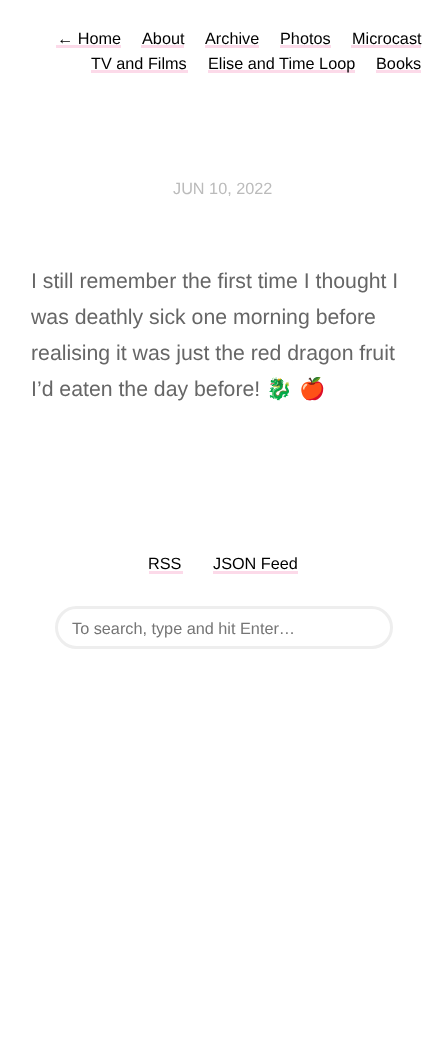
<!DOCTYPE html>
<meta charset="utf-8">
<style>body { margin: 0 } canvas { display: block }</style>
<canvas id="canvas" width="446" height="1050"></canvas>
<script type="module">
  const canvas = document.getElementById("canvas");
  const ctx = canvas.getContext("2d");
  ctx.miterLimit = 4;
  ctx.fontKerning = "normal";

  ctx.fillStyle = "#ffffff";
  ctx.fillRect(0, 0, 446, 1050);
  ctx.font = "16.25px Liberation Sans";
  ctx.fillStyle = "#000000";
  ctx.fillText("← Home", 57, 44);
  ctx.fillStyle = "#fcdae9";
  ctx.fillRect(56, 45, 65, 3);
  ctx.fillStyle = "#000000";
  ctx.fillText("About", 142, 44);
  ctx.fillStyle = "#fcdae9";
  ctx.fillRect(141, 45, 43, 3);
  ctx.fillStyle = "#000000";
  ctx.fillText("Archive", 205, 44);
  ctx.fillStyle = "#fcdae9";
  ctx.fillRect(205, 45, 54, 3);
  ctx.fillStyle = "#000000";
  ctx.fillText("Photos", 280, 44);
  ctx.fillStyle = "#fcdae9";
  ctx.fillRect(280, 45, 51, 3);
  ctx.fillStyle = "#000000";
  ctx.fillText("Microcast", 352, 44);
  ctx.fillStyle = "#fcdae9";
  ctx.fillRect(351, 45, 70, 3);
  ctx.fillStyle = "#000000";
  ctx.fillText("TV and Films", 91, 69);
  ctx.fillStyle = "#fcdae9";
  ctx.fillRect(91, 70, 97, 3);
  ctx.fillRect(208, 70, 147, 3);
  ctx.fillStyle = "#000000";
  ctx.fillText("Elise and Time Loop", 208, 69);
  ctx.fillText("Books", 376, 69);
  ctx.fillStyle = "#fcdae9";
  ctx.fillRect(376, 70, 45, 3);
  ctx.fillStyle = "#bbbbbb";
  ctx.fillText("JUN 10, 2022", 173, 194);
  ctx.font = "21.25px Liberation Sans";
  ctx.fillStyle = "#666666";
  ctx.fillText("I still remember the first time I thought I", 31, 288);
  ctx.fillText("was deathly sick one morning before", 31, 324);
  ctx.fillText("realising it was just the red dragon fruit", 31, 360);
  ctx.fillText("I’d eaten the day before!", 31, 396);
  ctx.font = "21.25px Noto Color Emoji";
  ctx.fillText("🐉", 266, 396);
  ctx.fillText("🍎", 299, 396);
  ctx.font = "16.25px Liberation Sans";
  ctx.fillStyle = "#000000";
  ctx.fillText("RSS", 148, 569);
  ctx.fillStyle = "#fcdae9";
  ctx.fillRect(149, 571, 34, 3);
  ctx.fillStyle = "#000000";
  ctx.fillText("JSON Feed", 213, 569);
  ctx.fillStyle = "#fcdae9";
  ctx.fillRect(213, 571, 85, 3);
  ctx.beginPath();
  ctx.roundRect(56.5, 607.5, 335, 40, 20);
  ctx.strokeStyle = "#eeeeee";
  ctx.lineWidth = 3;
  ctx.stroke();
  ctx.fillStyle = "#757575";
  ctx.fillText("To search, type and hit Enter…", 72, 634);
</script>
